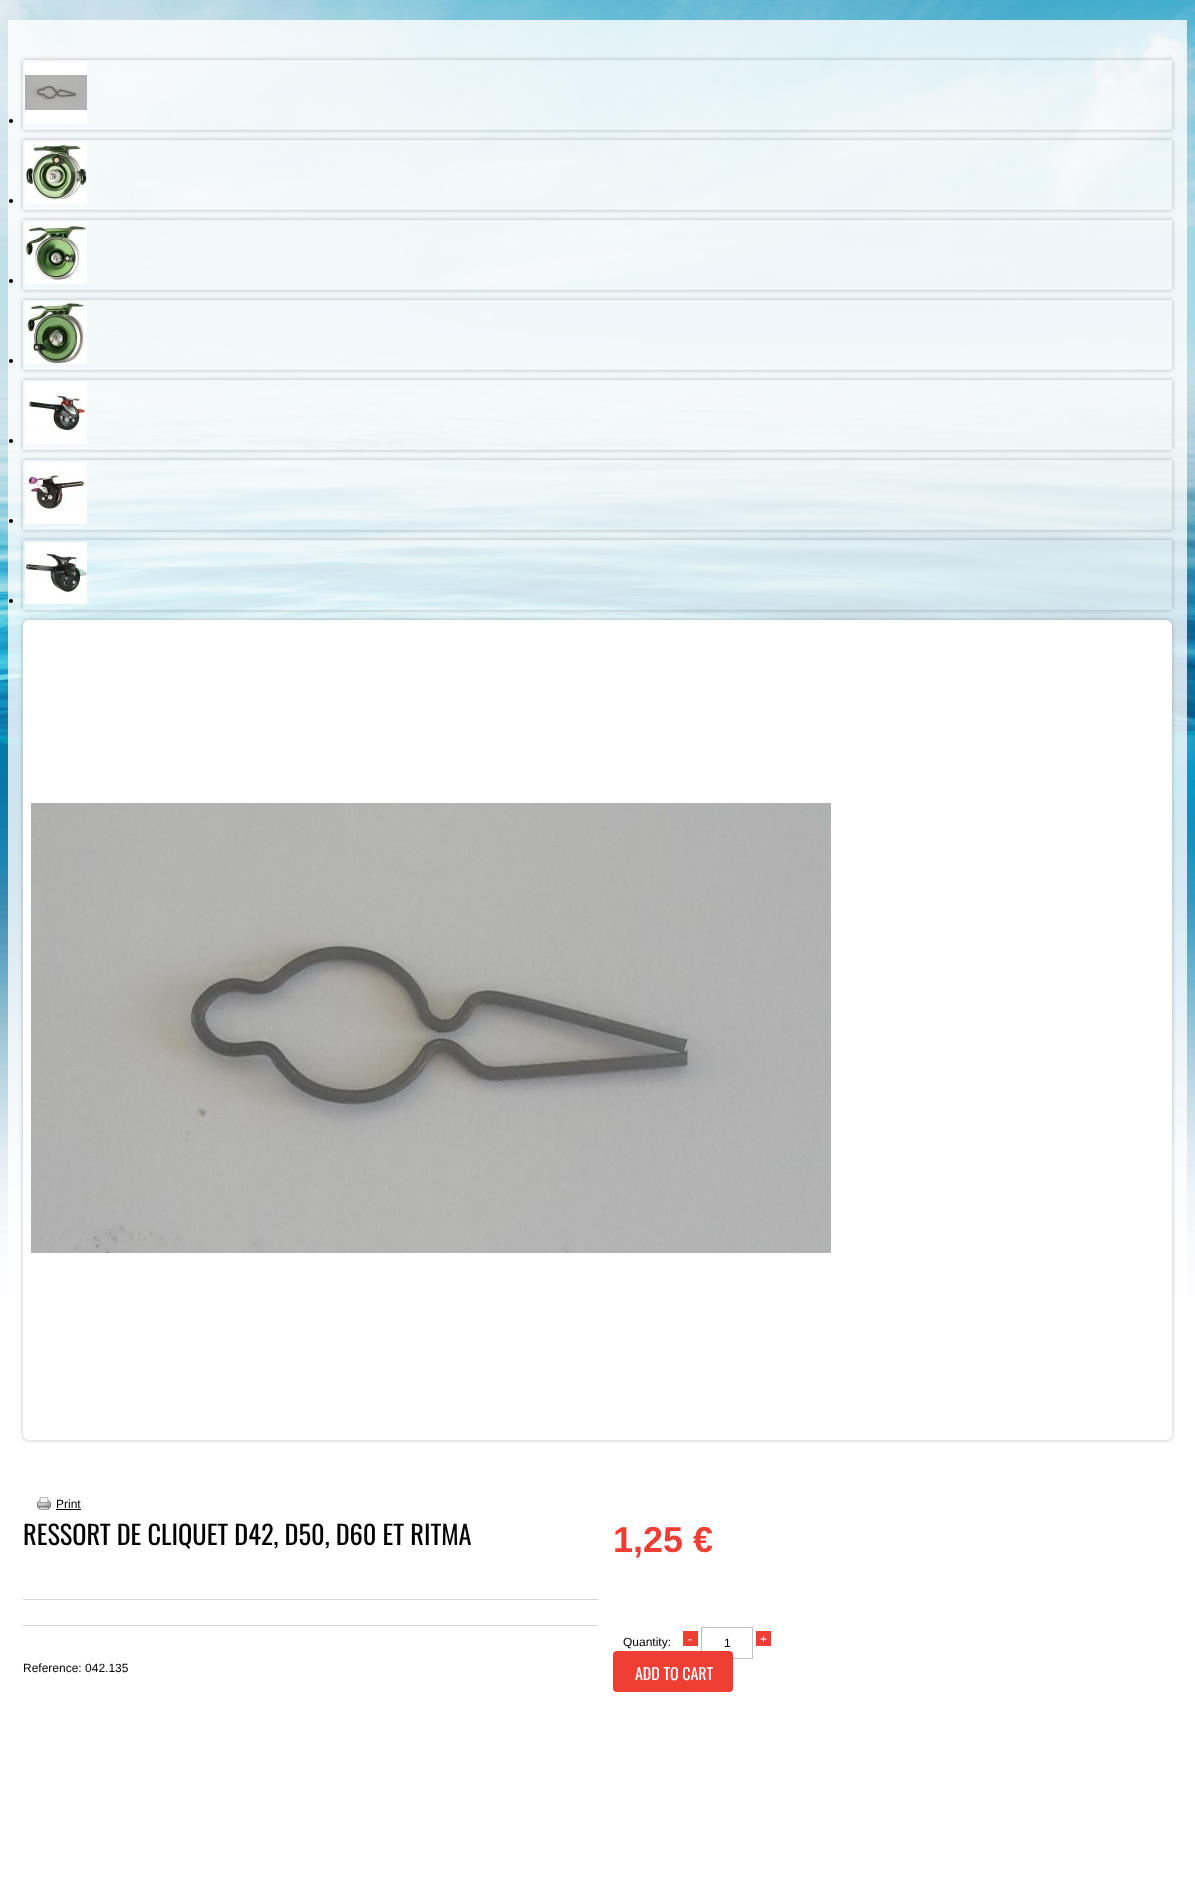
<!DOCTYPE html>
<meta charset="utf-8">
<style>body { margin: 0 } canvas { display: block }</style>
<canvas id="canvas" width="1195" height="1891"></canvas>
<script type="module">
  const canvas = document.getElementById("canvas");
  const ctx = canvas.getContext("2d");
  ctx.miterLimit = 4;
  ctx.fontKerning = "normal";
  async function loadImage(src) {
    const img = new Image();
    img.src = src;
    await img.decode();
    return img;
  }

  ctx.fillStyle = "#ffffff";
  ctx.fillRect(0, 0, 1195, 1891);
  ctx.drawImage(await loadImage("img1.png"), 0, 0, 1195, 1296);
  ctx.save();
  ctx.beginPath();
  ctx.moveTo(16, 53);
  ctx.lineTo(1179, 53);
  ctx.lineTo(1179, 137);
  ctx.lineTo(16, 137);
  ctx.closePath();
  ctx.moveTo(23, 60);
  ctx.lineTo(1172, 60);
  ctx.lineTo(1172, 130);
  ctx.lineTo(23, 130);
  ctx.closePath();
  ctx.clip("evenodd");
  ctx.fillStyle = "rgba(0, 0, 0, 0.27)";
  ctx.filter = "blur(2px)";
  ctx.beginPath();
  ctx.rect(23, 60, 1149, 70);
  ctx.fill();
  ctx.filter = "none";
  ctx.restore();
  ctx.fillStyle = "#000000";
  ctx.beginPath();
  ctx.arc(11, 121, 2, 0, Math.PI * 2);
  ctx.fill();
  ctx.drawImage(await loadImage("img2.png"), 25, 62, 62, 62);
  ctx.save();
  ctx.beginPath();
  ctx.moveTo(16, 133);
  ctx.lineTo(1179, 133);
  ctx.lineTo(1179, 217);
  ctx.lineTo(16, 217);
  ctx.closePath();
  ctx.moveTo(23, 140);
  ctx.lineTo(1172, 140);
  ctx.lineTo(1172, 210);
  ctx.lineTo(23, 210);
  ctx.closePath();
  ctx.clip("evenodd");
  ctx.fillStyle = "rgba(0, 0, 0, 0.27)";
  ctx.filter = "blur(2px)";
  ctx.beginPath();
  ctx.rect(23, 140, 1149, 70);
  ctx.fill();
  ctx.filter = "none";
  ctx.restore();
  ctx.beginPath();
  ctx.arc(11, 201, 2, 0, Math.PI * 2);
  ctx.fill();
  ctx.drawImage(await loadImage("img3.png"), 25, 142, 62, 62);
  ctx.save();
  ctx.beginPath();
  ctx.moveTo(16, 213);
  ctx.lineTo(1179, 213);
  ctx.lineTo(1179, 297);
  ctx.lineTo(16, 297);
  ctx.closePath();
  ctx.moveTo(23, 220);
  ctx.lineTo(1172, 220);
  ctx.lineTo(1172, 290);
  ctx.lineTo(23, 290);
  ctx.closePath();
  ctx.clip("evenodd");
  ctx.fillStyle = "rgba(0, 0, 0, 0.27)";
  ctx.filter = "blur(2px)";
  ctx.beginPath();
  ctx.rect(23, 220, 1149, 70);
  ctx.fill();
  ctx.filter = "none";
  ctx.restore();
  ctx.beginPath();
  ctx.arc(11, 281, 2, 0, Math.PI * 2);
  ctx.fill();
  ctx.drawImage(await loadImage("img4.png"), 25, 222, 62, 62);
  ctx.save();
  ctx.beginPath();
  ctx.moveTo(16, 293);
  ctx.lineTo(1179, 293);
  ctx.lineTo(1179, 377);
  ctx.lineTo(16, 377);
  ctx.closePath();
  ctx.moveTo(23, 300);
  ctx.lineTo(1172, 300);
  ctx.lineTo(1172, 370);
  ctx.lineTo(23, 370);
  ctx.closePath();
  ctx.clip("evenodd");
  ctx.fillStyle = "rgba(0, 0, 0, 0.27)";
  ctx.filter = "blur(2px)";
  ctx.beginPath();
  ctx.rect(23, 300, 1149, 70);
  ctx.fill();
  ctx.filter = "none";
  ctx.restore();
  ctx.beginPath();
  ctx.arc(11, 361, 2, 0, Math.PI * 2);
  ctx.fill();
  ctx.drawImage(await loadImage("img5.png"), 25, 302, 62, 62);
  ctx.save();
  ctx.beginPath();
  ctx.moveTo(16, 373);
  ctx.lineTo(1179, 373);
  ctx.lineTo(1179, 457);
  ctx.lineTo(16, 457);
  ctx.closePath();
  ctx.moveTo(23, 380);
  ctx.lineTo(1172, 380);
  ctx.lineTo(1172, 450);
  ctx.lineTo(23, 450);
  ctx.closePath();
  ctx.clip("evenodd");
  ctx.fillStyle = "rgba(0, 0, 0, 0.27)";
  ctx.filter = "blur(2px)";
  ctx.beginPath();
  ctx.rect(23, 380, 1149, 70);
  ctx.fill();
  ctx.filter = "none";
  ctx.restore();
  ctx.beginPath();
  ctx.arc(11, 441, 2, 0, Math.PI * 2);
  ctx.fill();
  ctx.drawImage(await loadImage("img6.png"), 25, 382, 62, 62);
  ctx.save();
  ctx.beginPath();
  ctx.moveTo(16, 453);
  ctx.lineTo(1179, 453);
  ctx.lineTo(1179, 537);
  ctx.lineTo(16, 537);
  ctx.closePath();
  ctx.moveTo(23, 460);
  ctx.lineTo(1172, 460);
  ctx.lineTo(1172, 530);
  ctx.lineTo(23, 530);
  ctx.closePath();
  ctx.clip("evenodd");
  ctx.fillStyle = "rgba(0, 0, 0, 0.27)";
  ctx.filter = "blur(2px)";
  ctx.beginPath();
  ctx.rect(23, 460, 1149, 70);
  ctx.fill();
  ctx.filter = "none";
  ctx.restore();
  ctx.beginPath();
  ctx.arc(11, 521, 2, 0, Math.PI * 2);
  ctx.fill();
  ctx.drawImage(await loadImage("img7.png"), 25, 462, 62, 62);
  ctx.save();
  ctx.beginPath();
  ctx.moveTo(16, 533);
  ctx.lineTo(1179, 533);
  ctx.lineTo(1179, 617);
  ctx.lineTo(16, 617);
  ctx.closePath();
  ctx.moveTo(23, 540);
  ctx.lineTo(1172, 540);
  ctx.lineTo(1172, 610);
  ctx.lineTo(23, 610);
  ctx.closePath();
  ctx.clip("evenodd");
  ctx.fillStyle = "rgba(0, 0, 0, 0.27)";
  ctx.filter = "blur(2px)";
  ctx.beginPath();
  ctx.rect(23, 540, 1149, 70);
  ctx.fill();
  ctx.filter = "none";
  ctx.restore();
  ctx.beginPath();
  ctx.arc(11, 601, 2, 0, Math.PI * 2);
  ctx.fill();
  ctx.drawImage(await loadImage("img8.png"), 25, 542, 62, 62);
  ctx.fillStyle = "rgba(0, 0, 0, 0.27)";
  ctx.filter = "blur(2px)";
  ctx.beginPath();
  ctx.roundRect(23, 620, 1149, 820, 6);
  ctx.fill();
  ctx.filter = "none";
  ctx.fillStyle = "#ffffff";
  ctx.beginPath();
  ctx.roundRect(23, 620, 1149, 820, 6);
  ctx.fill();
  ctx.drawImage(await loadImage("img9.png"), 31, 803, 800, 452);
  ctx.drawImage(await loadImage("img10.png"), 37, 1497, 14, 13);
  ctx.font = "12px Liberation Sans";
  ctx.fillStyle = "#000000";
  ctx.fillText("Print", 56, 1508);
  ctx.fillRect(56, 1509, 25, 1);
  ctx.font = "26.4px Oswald";
  ctx.fillText("RESSORT DE CLIQUET D42, D50, D60 ET RITMA", 23, 1545);
  ctx.fillStyle = "#d7d7d7";
  ctx.fillRect(23, 1599, 575, 1);
  ctx.fillRect(23, 1625, 575, 1);
  ctx.font = "12px Liberation Sans";
  ctx.fillStyle = "#000000";
  ctx.fillText("Reference: 042.135", 23, 1672);
  ctx.font = "bold 36px Liberation Sans";
  ctx.fillStyle = "#ef3e33";
  ctx.fillText("1,25 €", 613, 1552);
  ctx.font = "12px Liberation Sans";
  ctx.fillStyle = "#000000";
  ctx.fillText("Quantity:", 623, 1646);
  ctx.fillStyle = "#ef3e33";
  ctx.fillRect(683, 1631, 15, 15);
  ctx.fillStyle = "#ffffff";
  ctx.fillText("-", 688, 1643);
  ctx.strokeStyle = "#bdc2c9";
  ctx.strokeRect(701.5, 1627.5, 51, 31);
  ctx.fillStyle = "#000000";
  ctx.fillText("1", 724, 1647);
  ctx.fillStyle = "#ef3e33";
  ctx.fillRect(756, 1631, 15, 15);
  ctx.fillStyle = "#ffffff";
  ctx.fillText("+", 760, 1643);
  ctx.fillStyle = "#ef3e33";
  ctx.beginPath();
  ctx.roundRect(613, 1651, 120, 41, 4);
  ctx.fill();
  ctx.font = "16px Oswald";
  ctx.fillStyle = "#ffffff";
  ctx.fillText("ADD TO CART", 635, 1680);
</script>
